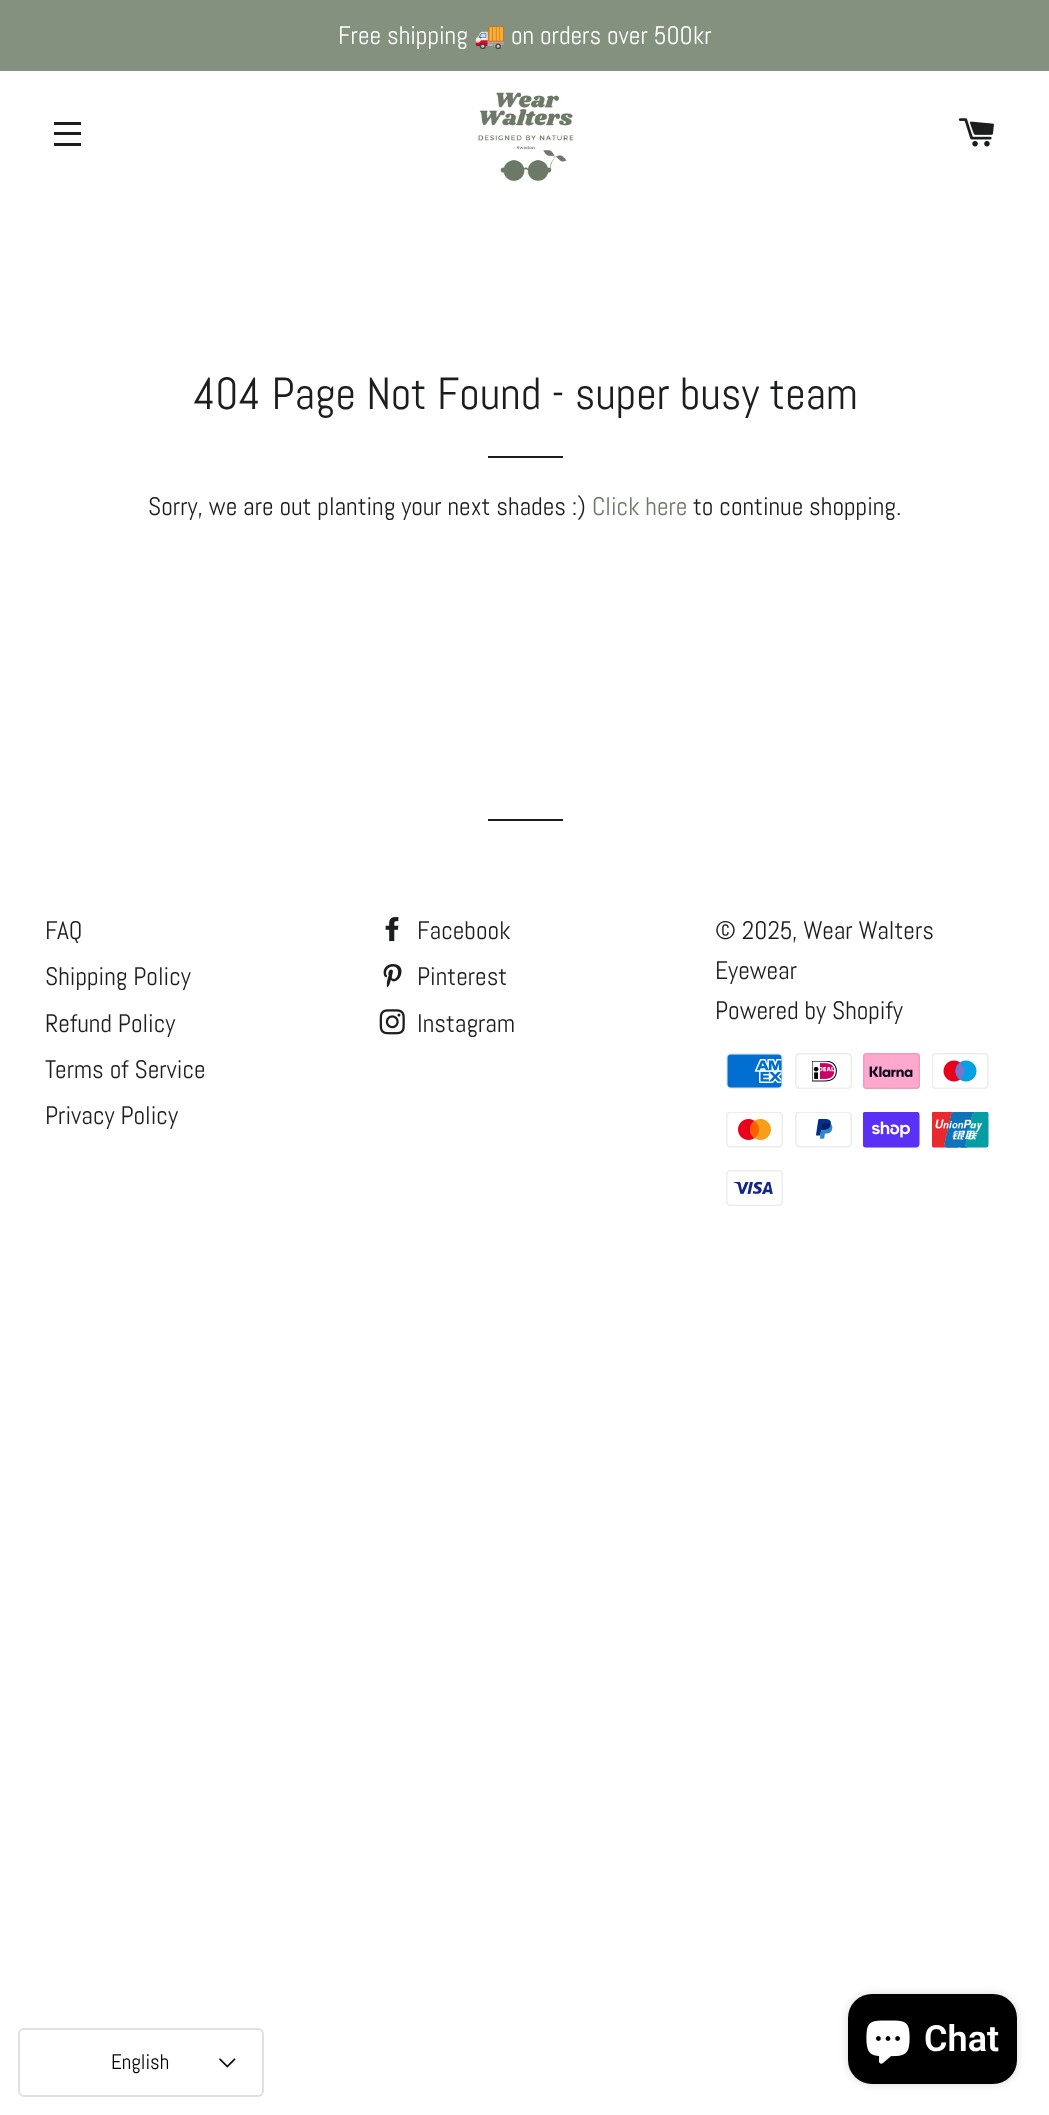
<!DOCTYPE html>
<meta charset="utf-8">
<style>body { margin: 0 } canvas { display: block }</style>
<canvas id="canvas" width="1049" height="2115"></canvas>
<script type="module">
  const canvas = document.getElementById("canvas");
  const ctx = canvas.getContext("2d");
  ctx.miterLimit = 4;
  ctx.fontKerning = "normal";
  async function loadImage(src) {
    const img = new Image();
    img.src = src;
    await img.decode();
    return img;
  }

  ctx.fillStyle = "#ffffff";
  ctx.fillRect(0, 0, 1049, 2115);
  ctx.fillStyle = "#84917e";
  ctx.fillRect(0, 0, 1049, 71);
  ctx.font = "25.5px Abel";
  ctx.fillStyle = "#ffffff";
  ctx.fillText("Free shipping", 338, 44);
  ctx.font = "25.5px Noto Color Emoji";
  ctx.fillText("🚚", 474, 44);
  ctx.font = "25.5px Abel";
  ctx.fillText("on orders over 500kr", 511, 44);
  ctx.fillStyle = "#1c1d1d";
  ctx.fillRect(54, 122, 27, 3);
  ctx.fillRect(54, 132, 27, 3);
  ctx.fillRect(54, 143, 27, 3);
  ctx.drawImage(await loadImage("img1.png"), 478, 92, 96, 89);
  ctx.drawImage(await loadImage("img2.png"), 958, 118, 36, 29);
  ctx.font = "45px Abel";
  ctx.fillText("404 Page Not Found - super busy team", 193, 409);
  ctx.fillRect(488, 456, 75, 2);
  ctx.font = "25.5px Abel";
  ctx.fillText("Sorry, we are out planting your next shades :)", 148, 515);
  ctx.fillStyle = "#6e7a68";
  ctx.fillText("Click here", 592, 515);
  ctx.fillStyle = "#1c1d1d";
  ctx.fillText("to continue shopping.", 693, 515);
  ctx.fillRect(488, 819, 75, 2);
  ctx.fillText("FAQ", 45, 939);
  ctx.fillText("Shipping Policy", 45, 985);
  ctx.fillText("Refund Policy", 45, 1032);
  ctx.fillText("Terms of Service", 45, 1078);
  ctx.fillText("Privacy Policy", 45, 1124);
  ctx.drawImage(await loadImage("img3.png"), 385, 917, 14, 25);
  ctx.fillText("Facebook", 417, 939);
  ctx.drawImage(await loadImage("img4.png"), 383, 964, 19, 24);
  ctx.fillText("Pinterest", 417, 985);
  ctx.drawImage(await loadImage("img5.png"), 379, 1009, 26, 26);
  ctx.fillText("Instagram", 417, 1032);
  ctx.fillText("© 2025, Wear Walters", 715, 939);
  ctx.fillText("Eyewear", 715, 979);
  ctx.fillText("Powered by Shopify", 715, 1019);
  ctx.drawImage(await loadImage("img6.png"), 726, 1053, 57, 36);
  ctx.drawImage(await loadImage("img7.png"), 795, 1053, 57, 36);
  ctx.drawImage(await loadImage("img8.png"), 863, 1053, 57, 36);
  ctx.drawImage(await loadImage("img9.png"), 932, 1053, 57, 36);
  ctx.drawImage(await loadImage("img10.png"), 726, 1112, 57, 36);
  ctx.drawImage(await loadImage("img11.png"), 795, 1112, 57, 36);
  ctx.drawImage(await loadImage("img12.png"), 863, 1112, 57, 36);
  ctx.drawImage(await loadImage("img13.png"), 932, 1112, 57, 36);
  ctx.drawImage(await loadImage("img14.png"), 726, 1170, 57, 36);
  ctx.fillStyle = "rgba(0, 0, 0, 0.15)";
  ctx.filter = "blur(4px)";
  ctx.beginPath();
  ctx.roundRect(848, 1994, 169, 90, 24);
  ctx.fill();
  ctx.filter = "none";
  ctx.fillStyle = "#000000";
  ctx.beginPath();
  ctx.roundRect(848, 1994, 169, 90, 24);
  ctx.fill();
  ctx.drawImage(await loadImage("img15.png"), 866, 2020, 44, 44);
  ctx.font = "600 36px Roboto";
  ctx.fillStyle = "#ffffff";
  ctx.fillText("Chat", 924, 2051);
  ctx.beginPath();
  ctx.roundRect(19, 2029, 244, 67, 5);
  ctx.strokeStyle = "#e0e0e0";
  ctx.lineWidth = 2;
  ctx.stroke();
  ctx.font = "21px Abel";
  ctx.fillStyle = "#000000";
  ctx.fillText("English", 111, 2069);
  ctx.drawImage(await loadImage("img16.png"), 219, 2058, 17, 10);
</script>
